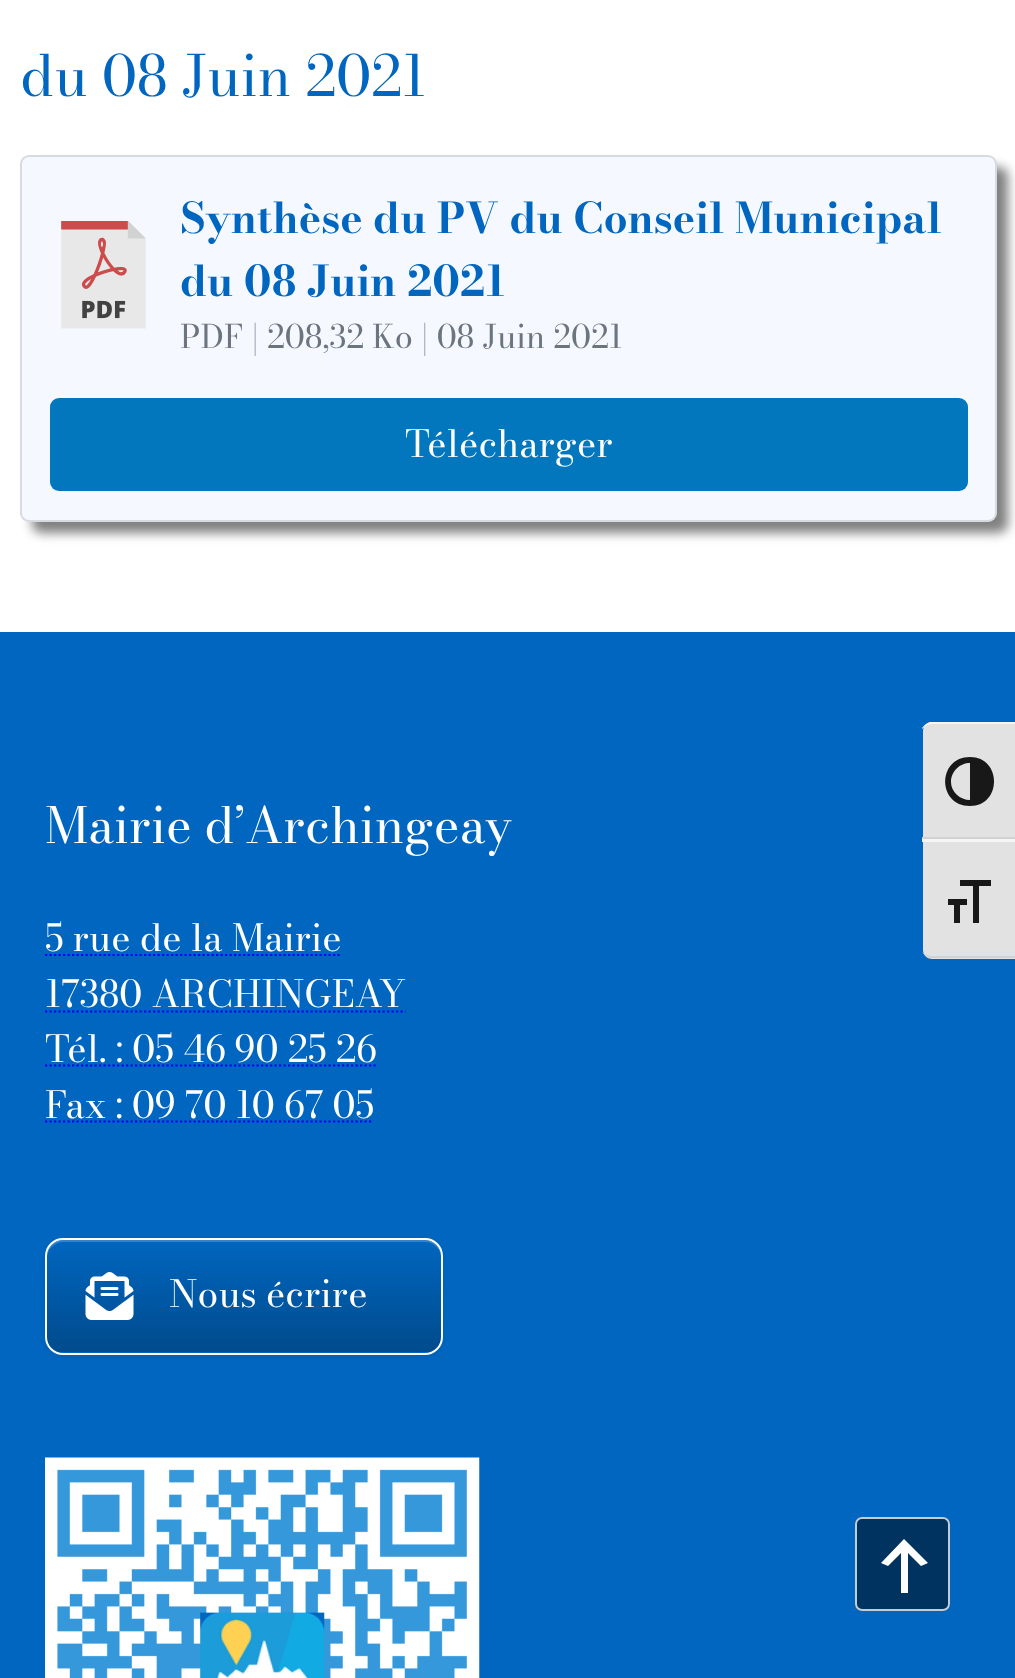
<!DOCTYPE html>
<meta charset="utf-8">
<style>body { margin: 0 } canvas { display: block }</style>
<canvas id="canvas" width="1015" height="1678"></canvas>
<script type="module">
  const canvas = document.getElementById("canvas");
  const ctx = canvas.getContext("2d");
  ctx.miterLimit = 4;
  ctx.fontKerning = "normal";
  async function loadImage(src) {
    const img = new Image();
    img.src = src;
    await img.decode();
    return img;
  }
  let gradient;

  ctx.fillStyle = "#ffffff";
  ctx.fillRect(0, 0, 1015, 1678);
  ctx.font = "56.25px Bodoni Moda";
  ctx.fillStyle = "#0066bf";
  ctx.fillText("du 08 Juin 2021", 20, 96);
  ctx.fillStyle = "#808080";
  ctx.filter = "blur(5.5px)";
  ctx.beginPath();
  ctx.roundRect(32, 167, 976, 366, 9);
  ctx.fill();
  ctx.filter = "none";
  ctx.fillStyle = "#f5f9ff";
  ctx.beginPath();
  ctx.roundRect(20, 155, 977, 367, 9);
  ctx.fill();
  ctx.beginPath();
  ctx.roundRect(21, 156, 975, 365, 8);
  ctx.strokeStyle = "rgba(0, 0, 0, 0.12)";
  ctx.lineWidth = 2;
  ctx.stroke();
  ctx.drawImage(await loadImage("img1.png"), 61, 221, 85, 108);
  ctx.font = "bold 42px Bodoni Moda";
  ctx.fillStyle = "#0066bf";
  ctx.fillText("Synthèse du PV du Conseil Municipal", 180, 233);
  ctx.fillText("du 08 Juin 2021", 180, 296);
  ctx.font = "32.25px Bodoni Moda";
  ctx.fillStyle = "#6c757d";
  ctx.fillText("PDF | 208,32 Ko | 08 Juin 2021", 180, 348);
  ctx.fillStyle = "#0277bd";
  ctx.beginPath();
  ctx.roundRect(50, 398, 918, 93, 9);
  ctx.fill();
  ctx.font = "37px Bodoni Moda";
  ctx.fillStyle = "#ffffff";
  ctx.fillText("Télécharger", 405, 457);
  ctx.fillStyle = "#0066bf";
  ctx.fillRect(0, 632, 1015, 1046);
  ctx.fillStyle = "#003360";
  ctx.beginPath();
  ctx.roundRect(855, 1517, 95, 94, 7);
  ctx.fill();
  ctx.beginPath();
  ctx.roundRect(856, 1518, 93, 92, 6);
  ctx.strokeStyle = "rgba(242, 242, 242, 0.8)";
  ctx.stroke();
  ctx.fillStyle = "#ffffff";
  ctx.beginPath();
  ctx.moveTo(908, 1593);
  ctx.lineTo(901, 1593);
  ctx.lineTo(901, 1553);
  ctx.lineTo(888, 1566);
  ctx.lineTo(881, 1563);
  ctx.lineTo(904, 1539);
  ctx.lineTo(928, 1563);
  ctx.lineTo(921, 1566);
  ctx.lineTo(908, 1553);
  ctx.closePath();
  ctx.fill();
  ctx.font = "49.5px Bodoni Moda";
  ctx.fillText("Mairie d’Archingeay", 45, 843);
  ctx.font = "37px Bodoni Moda";
  ctx.fillText("5 rue de la Mairie", 45, 951);
  ctx.beginPath();
  ctx.moveTo(45, 955);
  ctx.lineTo(341, 955);
  ctx.strokeStyle = "#0000ff";
  ctx.lineWidth = 2.2;
  ctx.setLineDash([2.25, 2.25]);
  ctx.stroke();
  ctx.fillText("17380 ARCHINGEAY", 45, 1007);
  ctx.beginPath();
  ctx.moveTo(45, 1011.5);
  ctx.lineTo(405.5, 1011.5);
  ctx.stroke();
  ctx.fillText("Tél. : 05 46 90 25 26", 45, 1062);
  ctx.beginPath();
  ctx.moveTo(45, 1065.5);
  ctx.lineTo(376, 1065.5);
  ctx.stroke();
  ctx.fillText("Fax : 09 70 10 67 05", 45, 1118);
  ctx.beginPath();
  ctx.moveTo(45, 1121.5);
  ctx.lineTo(373, 1121.5);
  ctx.stroke();
  ctx.fillStyle = "rgba(0, 0, 0, 0.07)";
  ctx.filter = "blur(2px)";
  ctx.beginPath();
  ctx.roundRect(45, 1240, 398, 117, 18);
  ctx.fill();
  ctx.filter = "none";
  ctx.save();
  ctx.beginPath();
  ctx.roundRect(45, 1238, 398, 117, 18);
  ctx.clip();
  gradient = ctx.createLinearGradient(47, 1352, 47, 1240);
  gradient.addColorStop(0, "#004b8c");
  gradient.addColorStop(1, "#0066bf");
  ctx.fillStyle = gradient;
  ctx.fillRect(45, 1240, 398, 112);
  gradient = ctx.createLinearGradient(47, 1465, 47, 1352);
  gradient.addColorStop(0, "#004b8c");
  gradient.addColorStop(1, "#0066bf");
  ctx.fillStyle = gradient;
  ctx.fillRect(45, 1352, 398, 3);
  ctx.restore();
  ctx.fillStyle = "rgba(255, 255, 255, 0.2)";
  ctx.beginPath();
  ctx.moveTo(63, 1242);
  ctx.lineTo(425, 1242);
  ctx.bezierCurveTo(434, 1242, 441, 1249, 441, 1258);
  ctx.lineTo(441, 1256);
  ctx.bezierCurveTo(441, 1247, 434, 1240, 425, 1240);
  ctx.lineTo(63, 1240);
  ctx.bezierCurveTo(54, 1240, 47, 1247, 47, 1256);
  ctx.lineTo(47, 1258);
  ctx.bezierCurveTo(47, 1249, 55, 1242, 63, 1242);
  ctx.closePath();
  ctx.fill();
  ctx.beginPath();
  ctx.roundRect(46, 1239, 396, 115, 17);
  ctx.strokeStyle = "#ffffff";
  ctx.lineWidth = 2;
  ctx.setLineDash([]);
  ctx.stroke();
  ctx.drawImage(await loadImage("img2.png"), 85, 1272, 49, 48);
  ctx.fillStyle = "#ffffff";
  ctx.fillText("Nous écrire", 169, 1307);
  ctx.drawImage(await loadImage("img3.png"), 45, 1457, 435, 221);
  ctx.fillStyle = "#e2e2e2";
  ctx.beginPath();
  ctx.moveTo(932, 722);
  ctx.lineTo(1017, 722);
  ctx.lineTo(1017, 839);
  ctx.lineTo(923, 839);
  ctx.lineTo(923, 731);
  ctx.bezierCurveTo(923, 726, 927, 722, 932, 722);
  ctx.closePath();
  ctx.fill();
  ctx.fillStyle = "#f5f5f5";
  ctx.beginPath();
  ctx.moveTo(932, 724);
  ctx.bezierCurveTo(928, 724, 924, 727, 922, 729);
  ctx.lineTo(922, 728);
  ctx.bezierCurveTo(924, 725, 927, 723, 930, 722);
  ctx.lineTo(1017, 722);
  ctx.lineTo(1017, 724);
  ctx.closePath();
  ctx.fill();
  ctx.fillStyle = "#d2d2d2";
  ctx.fillRect(922, 837, 93, 2);
  ctx.fillStyle = "#181818";
  ctx.beginPath();
  ctx.moveTo(970, 757);
  ctx.bezierCurveTo(937, 757, 937, 806, 970, 806);
  ctx.bezierCurveTo(1002, 806, 1002, 757, 970, 757);
  ctx.closePath();
  ctx.moveTo(951, 782);
  ctx.bezierCurveTo(951, 771, 960, 763, 970, 763);
  ctx.lineTo(970, 800);
  ctx.bezierCurveTo(960, 800, 951, 792, 951, 782);
  ctx.closePath();
  ctx.fill();
  ctx.fillStyle = "#e2e2e2";
  ctx.beginPath();
  ctx.moveTo(923, 839);
  ctx.lineTo(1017, 839);
  ctx.lineTo(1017, 959);
  ctx.lineTo(932, 959);
  ctx.bezierCurveTo(927, 959, 923, 955, 923, 950);
  ctx.closePath();
  ctx.fill();
  ctx.fillStyle = "#f5f5f5";
  ctx.fillRect(922, 839, 93, 3);
  ctx.fillStyle = "#d2d2d2";
  ctx.beginPath();
  ctx.moveTo(922, 952);
  ctx.bezierCurveTo(924, 954, 928, 956, 932, 956);
  ctx.lineTo(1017, 956);
  ctx.lineTo(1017, 958);
  ctx.lineTo(932, 958);
  ctx.bezierCurveTo(928, 958, 924, 955, 922, 952);
  ctx.closePath();
  ctx.fill();
  ctx.fillStyle = "#181818";
  ctx.beginPath();
  ctx.moveTo(948, 899);
  ctx.lineTo(967, 899);
  ctx.lineTo(967, 905);
  ctx.lineTo(960, 905);
  ctx.lineTo(960, 923);
  ctx.lineTo(954, 923);
  ctx.lineTo(954, 905);
  ctx.lineTo(948, 905);
  ctx.closePath();
  ctx.moveTo(991, 886);
  ctx.lineTo(979, 886);
  ctx.lineTo(979, 923);
  ctx.lineTo(973, 923);
  ctx.lineTo(973, 886);
  ctx.lineTo(960, 886);
  ctx.lineTo(960, 880);
  ctx.lineTo(991, 880);
  ctx.closePath();
  ctx.fill();
</script>
